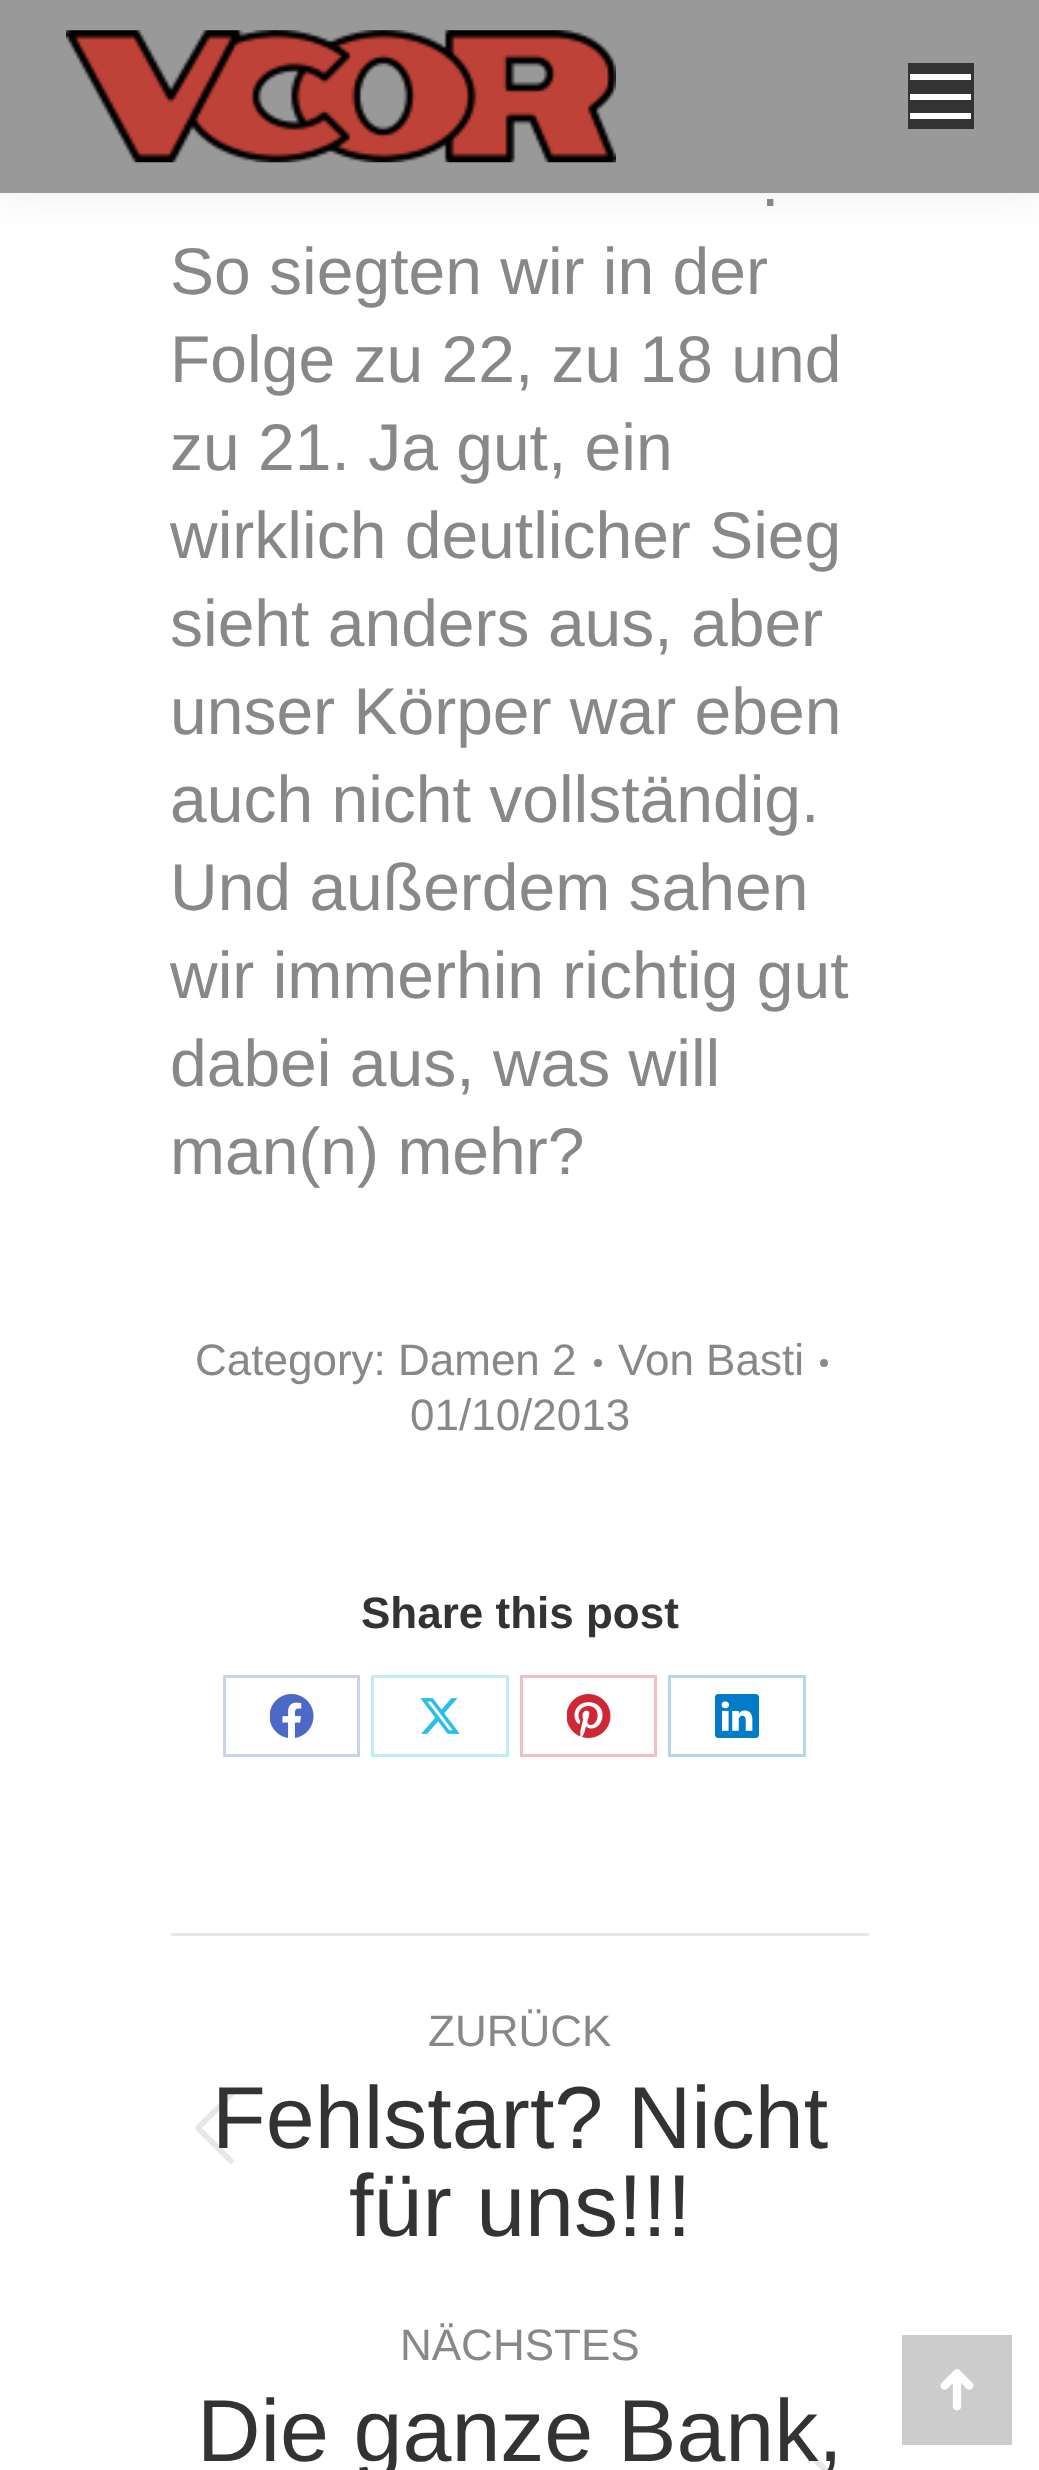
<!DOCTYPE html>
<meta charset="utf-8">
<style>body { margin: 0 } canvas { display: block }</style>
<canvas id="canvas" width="1039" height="2470"></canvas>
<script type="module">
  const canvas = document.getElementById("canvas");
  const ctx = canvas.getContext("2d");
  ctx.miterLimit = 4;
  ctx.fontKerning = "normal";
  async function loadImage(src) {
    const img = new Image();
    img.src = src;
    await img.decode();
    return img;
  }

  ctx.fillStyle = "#ffffff";
  ctx.fillRect(0, 0, 1039, 2470);
  ctx.fillStyle = "rgba(0, 0, 0, 0.07)";
  ctx.filter = "blur(20.5px)";
  ctx.beginPath();
  ctx.rect(-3, -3, 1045, 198);
  ctx.fill();
  ctx.filter = "none";
  ctx.fillStyle = "#999999";
  ctx.fillRect(0, 0, 1039, 193);
  ctx.drawImage(await loadImage("img1.png"), 66, 30, 550, 133);
  ctx.fillStyle = "#333333";
  ctx.fillRect(908, 63, 66, 66);
  ctx.fillStyle = "#ffffff";
  ctx.fillRect(910, 74, 61, 6);
  ctx.fillRect(910, 94, 61, 6);
  ctx.fillRect(910, 113, 61, 6);
  ctx.font = "66px Liberation Sans";
  ctx.fillStyle = "#888888";
  ctx.fillText(".", 761, 206);
  ctx.fillText("So siegten wir in der", 170, 294);
  ctx.fillText("Folge zu 22, zu 18 und", 170, 382);
  ctx.fillText("zu 21. Ja gut, ein", 170, 470);
  ctx.fillText("wirklich deutlicher Sieg", 170, 558);
  ctx.fillText("sieht anders aus, aber", 170, 646);
  ctx.fillText("unser Körper war eben", 170, 734);
  ctx.fillText("auch nicht vollständig.", 170, 822);
  ctx.fillText("Und außerdem sahen", 170, 910);
  ctx.fillText("wir immerhin richtig gut", 170, 998);
  ctx.fillText("dabei aus, was will", 170, 1086);
  ctx.fillText("man(n) mehr?", 170, 1174);
  ctx.font = "44px Liberation Sans";
  ctx.fillText("Category: Damen 2", 195, 1375);
  ctx.beginPath();
  ctx.arc(598, 1363, 4, 0, Math.PI * 2);
  ctx.fill();
  ctx.fillText("Von Basti", 618, 1375);
  ctx.beginPath();
  ctx.arc(824, 1363, 4, 0, Math.PI * 2);
  ctx.fill();
  ctx.fillText("01/10/2013", 410, 1430);
  ctx.font = "bold 44px Liberation Sans";
  ctx.fillStyle = "#333333";
  ctx.fillText("Share this post", 361, 1628);
  ctx.strokeStyle = "#c9d2ee";
  ctx.lineWidth = 3;
  ctx.strokeRect(224.5, 1676.5, 134, 79);
  ctx.drawImage(await loadImage("img2.png"), 270, 1694, 44, 44);
  ctx.strokeStyle = "#bfecf9";
  ctx.strokeRect(372.5, 1676.5, 135, 79);
  ctx.drawImage(await loadImage("img3.png"), 420, 1698, 40, 36);
  ctx.strokeStyle = "#f1bfc2";
  ctx.strokeRect(521.5, 1676.5, 134, 79);
  ctx.drawImage(await loadImage("img4.png"), 567, 1694, 44, 44);
  ctx.strokeStyle = "#b3d7ee";
  ctx.strokeRect(669.5, 1676.5, 135, 79);
  ctx.drawImage(await loadImage("img5.png"), 715, 1694, 44, 44);
  ctx.fillStyle = "#e6e7e9";
  ctx.fillRect(171, 1933, 698, 3);
  ctx.font = "44px Liberation Sans";
  ctx.fillStyle = "#888888";
  ctx.fillText("ZURÜCK", 428, 2046);
  ctx.fillStyle = "rgba(51, 51, 51, 0.12)";
  ctx.beginPath();
  ctx.moveTo(233, 2093);
  ctx.bezierCurveTo(234, 2094, 234, 2096, 233, 2097);
  ctx.lineTo(202, 2128);
  ctx.lineTo(233, 2159);
  ctx.bezierCurveTo(234, 2160, 234, 2162, 233, 2163);
  ctx.bezierCurveTo(232, 2164, 230, 2164, 229, 2163);
  ctx.lineTo(196, 2130);
  ctx.bezierCurveTo(195, 2129, 195, 2127, 196, 2126);
  ctx.lineTo(229, 2093);
  ctx.bezierCurveTo(230, 2093, 232, 2093, 233, 2093);
  ctx.closePath();
  ctx.fill();
  ctx.font = "88px Liberation Sans";
  ctx.fillStyle = "#333333";
  ctx.fillText("Fehlstart? Nicht", 212, 2148);
  ctx.fillText("für uns!!!", 349, 2236);
  ctx.font = "44px Liberation Sans";
  ctx.fillStyle = "#888888";
  ctx.fillText("NÄCHSTES", 400, 2360);
  ctx.font = "88px Liberation Sans";
  ctx.fillStyle = "#333333";
  ctx.fillText("Die ganze Bank,", 197, 2461);
  ctx.drawImage(await loadImage("img6.png"), 812, 2453, 16, 17);
  ctx.fillStyle = "#cccccc";
  ctx.fillRect(902, 2335, 110, 110);
  ctx.drawImage(await loadImage("img7.png"), 940, 2369, 34, 42);
</script>
